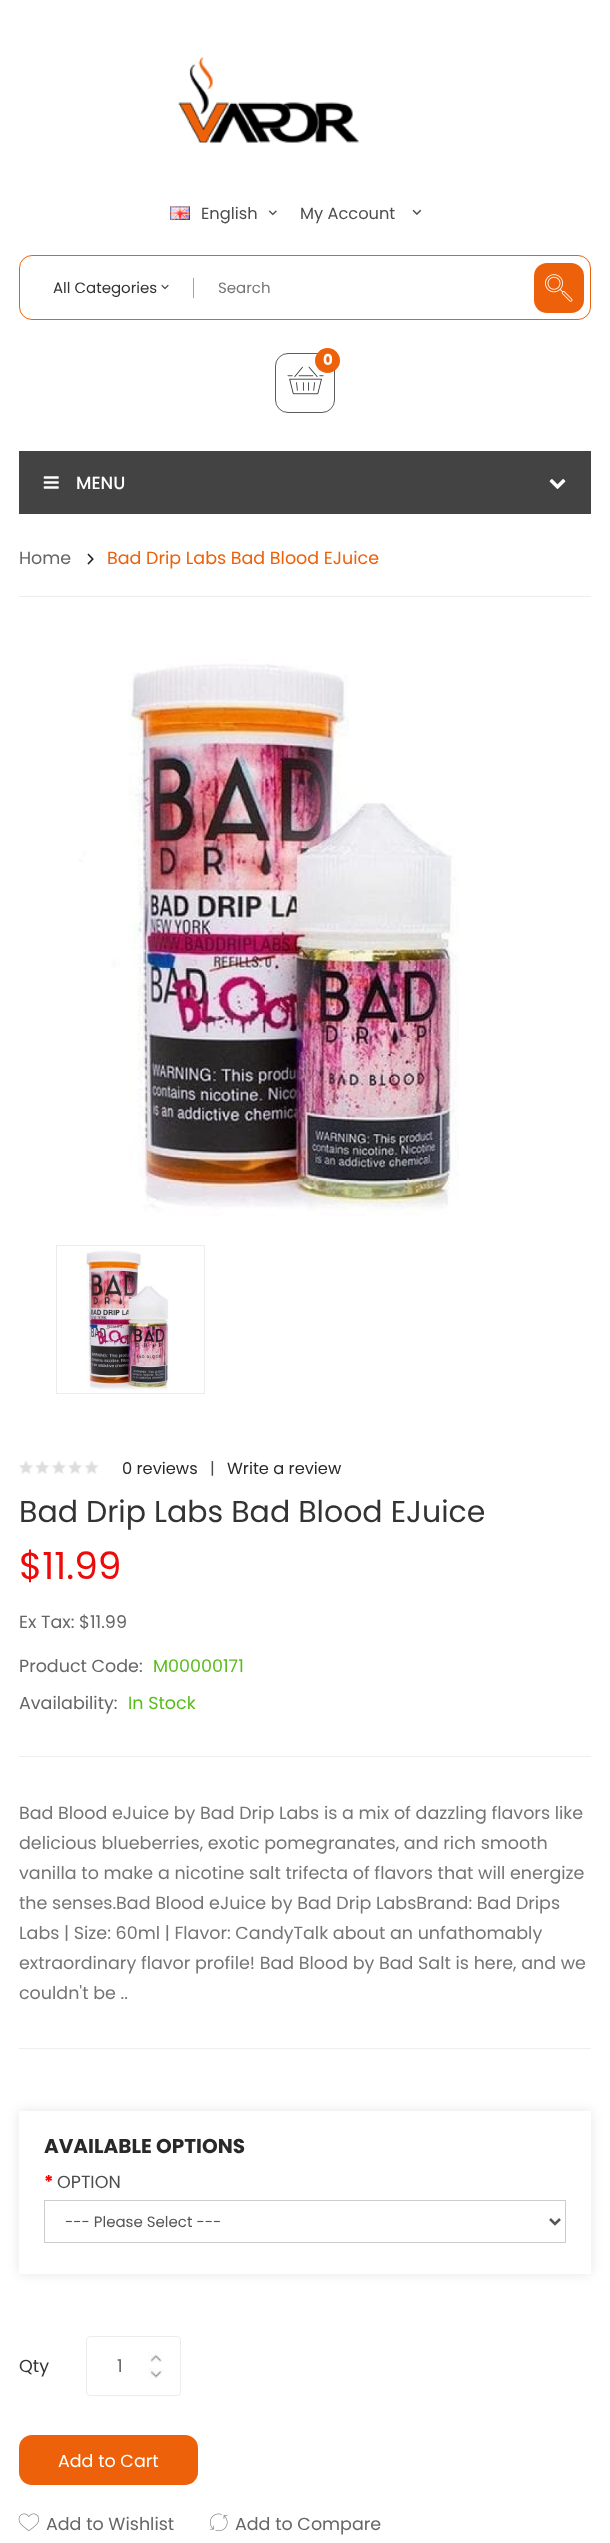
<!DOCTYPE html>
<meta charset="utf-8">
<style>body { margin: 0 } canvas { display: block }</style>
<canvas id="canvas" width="610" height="2543"></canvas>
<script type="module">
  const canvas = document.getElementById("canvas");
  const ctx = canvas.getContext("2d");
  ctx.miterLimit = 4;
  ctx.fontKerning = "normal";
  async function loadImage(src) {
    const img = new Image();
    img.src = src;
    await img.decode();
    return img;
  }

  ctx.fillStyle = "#ffffff";
  ctx.fillRect(0, 0, 610, 2543);
  ctx.drawImage(await loadImage("img1.png"), 178, 57, 181, 86);
  ctx.drawImage(await loadImage("img2.png"), 170, 206, 20, 14);
  ctx.font = "16.25px Poppins";
  ctx.fillStyle = "#4d4d4d";
  ctx.fillText("English", 201, 219);
  ctx.drawImage(await loadImage("img3.png"), 268, 210, 9, 6);
  ctx.fillText("My Account", 300, 219);
  ctx.drawImage(await loadImage("img4.png"), 412, 209, 10, 6);
  ctx.beginPath();
  ctx.roundRect(19.5, 255.5, 571, 64, 12.5);
  ctx.strokeStyle = "#ec610a";
  ctx.stroke();
  ctx.font = "15px Poppins";
  ctx.fillStyle = "#333333";
  ctx.fillText("All Categories", 53, 293);
  ctx.drawImage(await loadImage("img5.png"), 161, 284, 8, 6);
  ctx.fillStyle = "#a1a1a1";
  ctx.fillRect(193, 278, 1, 20);
  ctx.fillStyle = "#757575";
  ctx.fillText("Search", 218, 293);
  ctx.fillStyle = "#ec610a";
  ctx.beginPath();
  ctx.roundRect(534, 263, 50, 50, 13);
  ctx.fill();
  ctx.drawImage(await loadImage("img6.png"), 545, 274, 28, 28);
  ctx.beginPath();
  ctx.roundRect(275.5, 353.5, 59, 59, 12.5);
  ctx.strokeStyle = "#5c5c5c";
  ctx.stroke();
  ctx.drawImage(await loadImage("img7.png"), 287, 366, 37, 29);
  ctx.beginPath();
  ctx.arc(327.5, 360.5, 12.5, 0, Math.PI * 2);
  ctx.fill();
  ctx.font = "bold 15px Poppins";
  ctx.fillStyle = "#ffffff";
  ctx.fillText("0", 323, 365);
  ctx.fillStyle = "#434343";
  ctx.fillRect(19, 451, 572, 63);
  ctx.drawImage(await loadImage("img8.png"), 43, 476, 16, 13);
  ctx.font = "500 17.5px Poppins";
  ctx.fillStyle = "#ffffff";
  ctx.fillText("MENU", 76, 489);
  ctx.drawImage(await loadImage("img9.png"), 549, 479, 17, 10);
  ctx.fillStyle = "#ededed";
  ctx.fillRect(19, 596, 572, 1);
  ctx.font = "17.5px Poppins";
  ctx.fillStyle = "#666666";
  ctx.fillText("Home", 19, 564);
  ctx.drawImage(await loadImage("img10.png"), 87, 553, 7, 12);
  ctx.fillStyle = "#ec610a";
  ctx.fillText("Bad Drip Labs Bad Blood EJuice", 107, 564);
  ctx.drawImage(await loadImage("img11.png"), 78, 659, 381, 557);
  ctx.strokeStyle = "#edecec";
  ctx.strokeRect(56.5, 1245.5, 148, 148);
  ctx.drawImage(await loadImage("img12.png"), 86, 1250, 84, 141);
  ctx.drawImage(await loadImage("img13.png"), 19, 1460, 80, 14);
  ctx.font = "16.25px Poppins";
  ctx.fillStyle = "#292929";
  ctx.fillText("0 reviews", 122, 1474);
  ctx.fillStyle = "#4d4d4d";
  ctx.fillText("|", 210, 1474);
  ctx.fillStyle = "#292929";
  ctx.fillText("Write a review", 227, 1474);
  ctx.font = "30px Poppins";
  ctx.fillStyle = "#333333";
  ctx.fillText("Bad Drip Labs Bad Blood EJuice", 19, 1522);
  ctx.font = "37.5px Poppins";
  ctx.fillStyle = "#ec0a0a";
  ctx.fillText("$11.99", 19, 1579);
  ctx.font = "17.5px Poppins";
  ctx.fillStyle = "#666666";
  ctx.fillText("Ex Tax: $11.99", 19, 1628);
  ctx.fillText("Product Code:", 19, 1672);
  ctx.fillStyle = "#58bd1a";
  ctx.fillText("M00000171", 153, 1672);
  ctx.fillStyle = "#666666";
  ctx.fillText("Availability:", 19, 1709);
  ctx.fillStyle = "#58bd1a";
  ctx.fillText("In Stock", 128, 1709);
  ctx.fillStyle = "#eeeeee";
  ctx.fillRect(19, 1756, 572, 1);
  ctx.fillRect(19, 2048, 572, 1);
  ctx.fillStyle = "#757575";
  ctx.fillText("Bad Blood eJuice by Bad Drip Labs is a mix of dazzling flavors like", 19, 1819);
  ctx.fillText("delicious blueberries, exotic pomegranates, and rich smooth", 19, 1849);
  ctx.fillText("vanilla to make a nicotine salt trifecta of flavors that will energize", 19, 1879);
  ctx.fillText("the senses.Bad Blood eJuice by Bad Drip LabsBrand: Bad Drips", 19, 1909);
  ctx.fillText("Labs | Size: 60ml | Flavor: CandyTalk about an unfathomably", 19, 1939);
  ctx.fillText("extraordinary flavor profile! Bad Blood by Bad Salt is here, and we", 19, 1969);
  ctx.fillText("couldn't be ..", 19, 1999);
  ctx.save();
  ctx.beginPath();
  ctx.moveTo(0, 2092);
  ctx.lineTo(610, 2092);
  ctx.lineTo(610, 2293);
  ctx.lineTo(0, 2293);
  ctx.closePath();
  ctx.moveTo(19, 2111);
  ctx.lineTo(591, 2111);
  ctx.lineTo(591, 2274);
  ctx.lineTo(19, 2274);
  ctx.closePath();
  ctx.clip("evenodd");
  ctx.fillStyle = "rgba(0, 0, 0, 0.1)";
  ctx.filter = "blur(6px)";
  ctx.beginPath();
  ctx.rect(19, 2111, 572, 163);
  ctx.fill();
  ctx.filter = "none";
  ctx.restore();
  ctx.font = "bold 20px Poppins";
  ctx.fillStyle = "#292929";
  ctx.fillText("AVAILABLE OPTIONS", 44, 2153);
  ctx.font = "bold 17.5px Poppins";
  ctx.fillStyle = "#ff0000";
  ctx.fillText("*", 44, 2188);
  ctx.font = "17.5px Poppins";
  ctx.fillStyle = "#4d4d4d";
  ctx.fillText("OPTION", 57, 2188);
  ctx.strokeStyle = "#cccccc";
  ctx.strokeRect(44.5, 2200.5, 521, 42);
  ctx.beginPath();
  ctx.moveTo(550, 2219);
  ctx.lineTo(555, 2224);
  ctx.lineTo(560, 2219);
  ctx.strokeStyle = "#555555";
  ctx.lineWidth = 2.5;
  ctx.stroke();
  ctx.font = "15px Poppins";
  ctx.fillStyle = "#555555";
  ctx.fillText("--- Please Select ---", 65, 2227);
  ctx.font = "17.5px Poppins";
  ctx.fillStyle = "#333333";
  ctx.fillText("Qty", 19, 2372);
  ctx.beginPath();
  ctx.roundRect(86.5, 2336.5, 94, 59, 3.5);
  ctx.strokeStyle = "#ececec";
  ctx.lineWidth = 1;
  ctx.stroke();
  ctx.drawImage(await loadImage("img14.png"), 148, 2350, 14, 13);
  ctx.fillStyle = "#666666";
  ctx.fillText("1", 117, 2372);
  ctx.drawImage(await loadImage("img15.png"), 149, 2368, 15, 11);
  ctx.fillStyle = "#ec610a";
  ctx.beginPath();
  ctx.roundRect(19, 2435, 179, 50, 13);
  ctx.fill();
  ctx.fillStyle = "#ffffff";
  ctx.fillText("Add to Cart", 58, 2467);
  ctx.drawImage(await loadImage("img16.png"), 18, 2513, 21, 18);
  ctx.fillStyle = "#666666";
  ctx.fillText("Add to Wishlist", 46, 2530);
  ctx.drawImage(await loadImage("img17.png"), 209, 2513, 19, 19);
  ctx.fillText("Add to Compare", 235, 2530);
</script>
